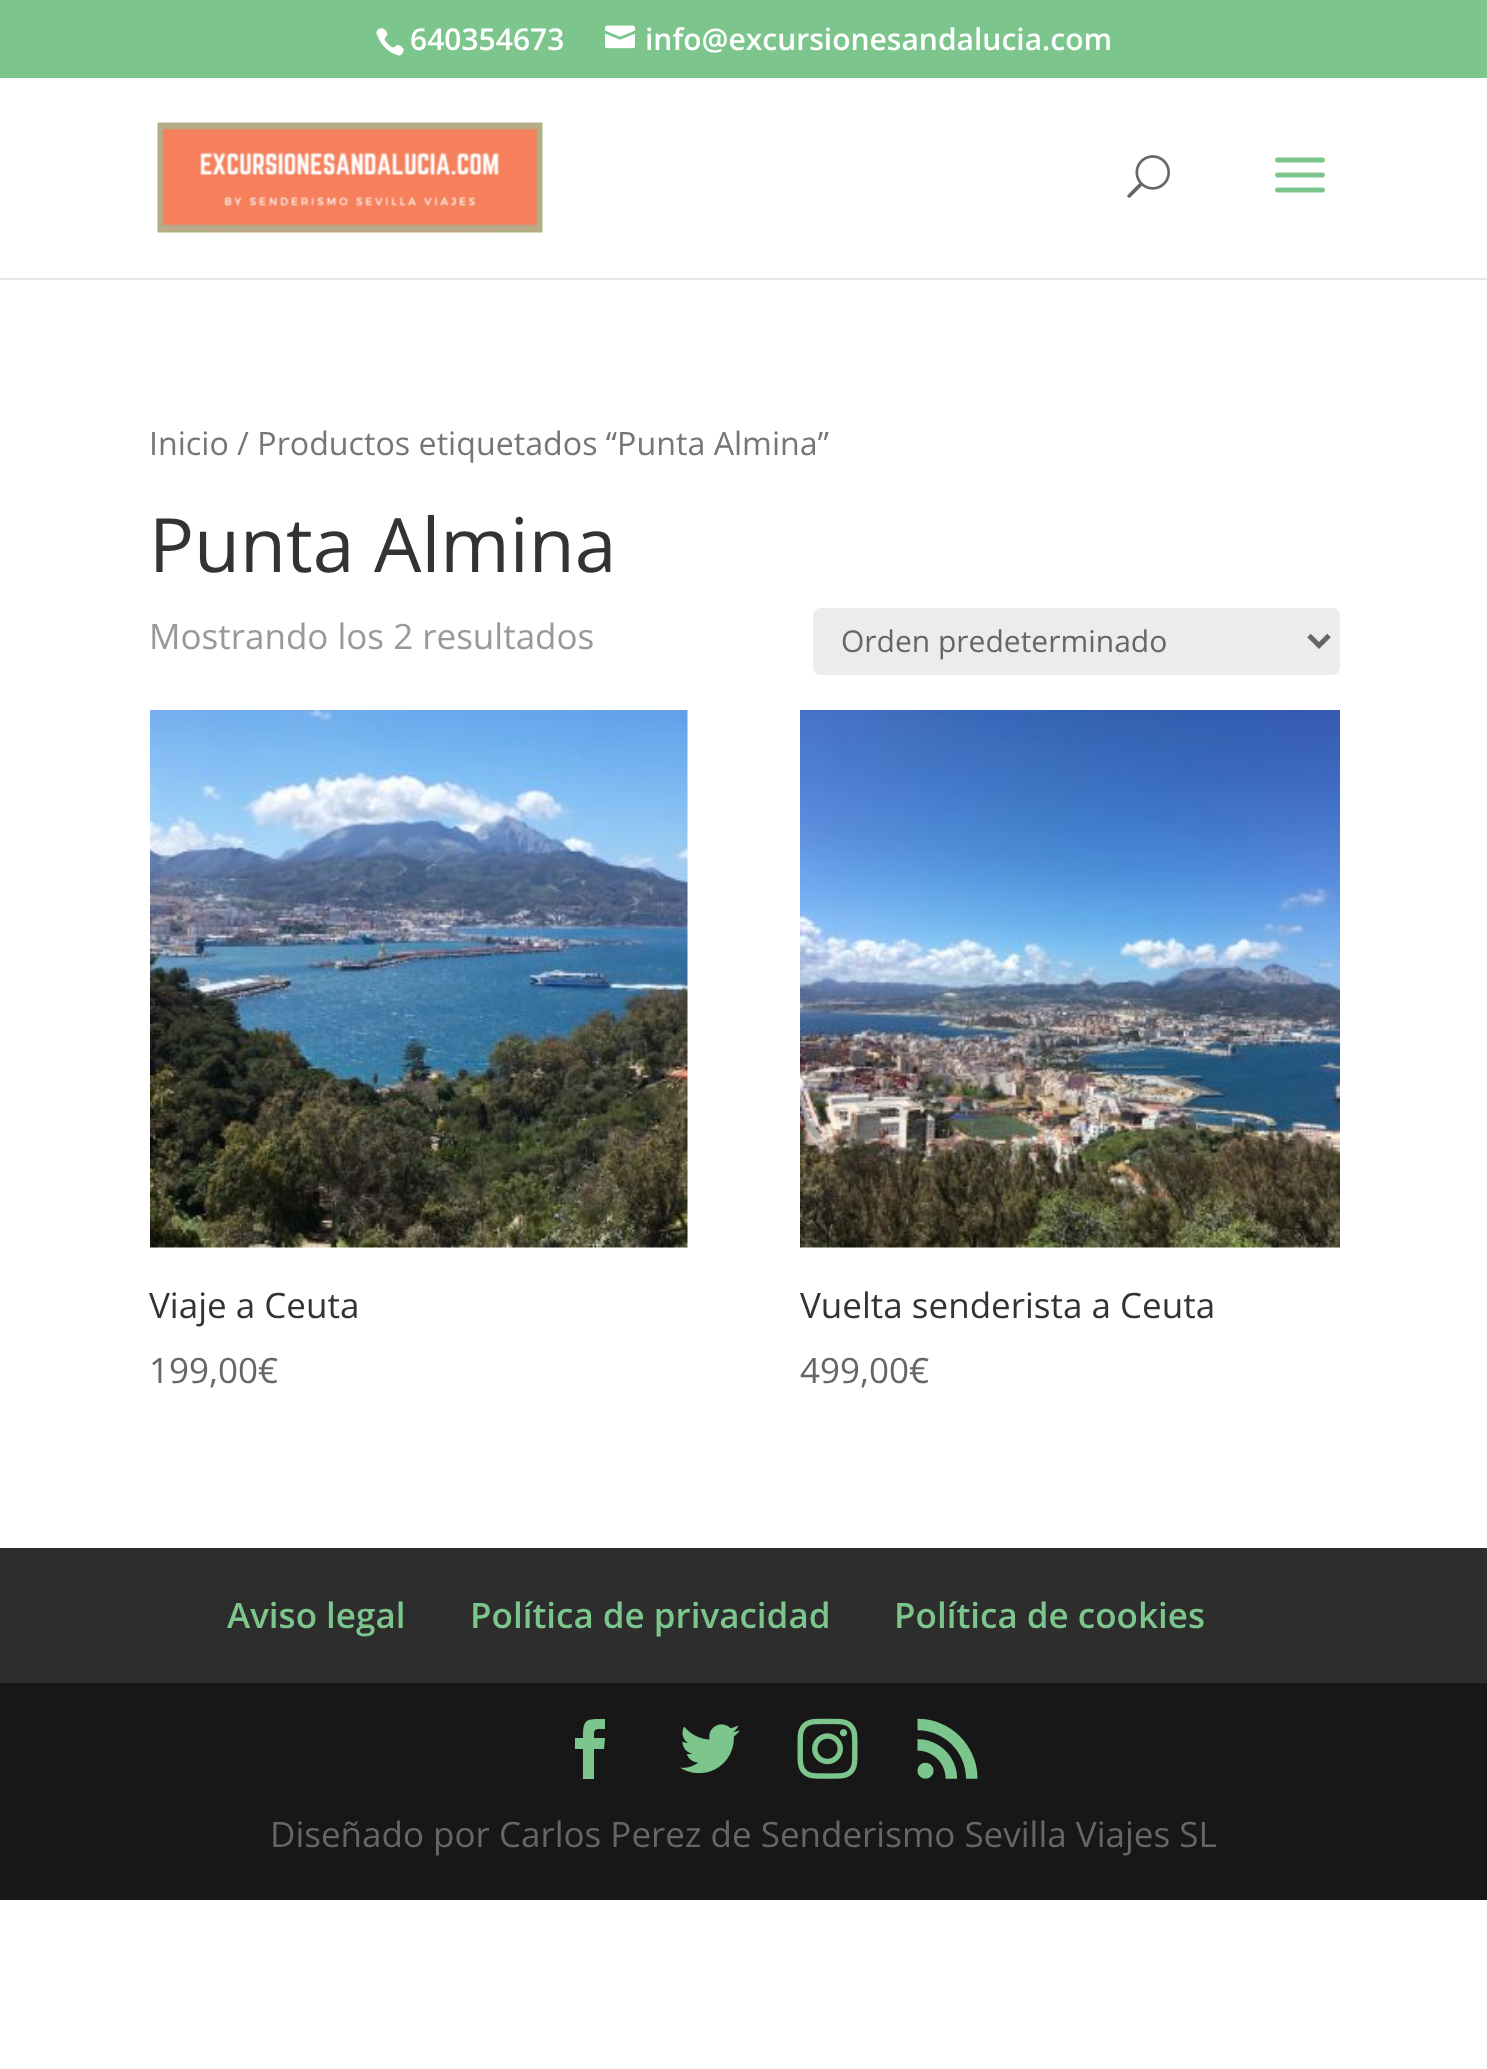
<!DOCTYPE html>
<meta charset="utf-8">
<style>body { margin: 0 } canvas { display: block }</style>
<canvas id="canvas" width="1487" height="2069"></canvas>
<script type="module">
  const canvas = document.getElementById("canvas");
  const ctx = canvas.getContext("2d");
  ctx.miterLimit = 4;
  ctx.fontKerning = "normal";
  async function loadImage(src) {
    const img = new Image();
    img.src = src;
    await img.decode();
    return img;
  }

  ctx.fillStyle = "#ffffff";
  ctx.fillRect(0, 0, 1487, 2069);
  ctx.fillStyle = "#7cc68d";
  ctx.fillRect(0, 0, 1487, 78);
  ctx.drawImage(await loadImage("img1.png"), 376, 28, 28, 28);
  ctx.font = "600 30px Open Sans";
  ctx.fillStyle = "#ffffff";
  ctx.fillText("640354673", 410, 50);
  ctx.drawImage(await loadImage("img2.png"), 605, 25, 30, 24);
  ctx.fillText("info@excursionesandalucia.com", 645, 50);
  ctx.fillStyle = "#e6e6e6";
  ctx.beginPath();
  ctx.moveTo(0, 278);
  ctx.lineTo(0, 280);
  ctx.lineTo(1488, 280);
  ctx.lineTo(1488, 80);
  ctx.lineTo(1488, 278);
  ctx.closePath();
  ctx.fill();
  ctx.drawImage(await loadImage("img3.png"), 157, 122, 386, 111);
  ctx.drawImage(await loadImage("img4.png"), 1127, 155, 43, 43);
  ctx.drawImage(await loadImage("img5.png"), 1275, 157, 50, 36);
  ctx.font = "32.2px Open Sans";
  ctx.fillStyle = "#767676";
  ctx.fillText("Inicio / Productos etiquetados “Punta Almina”", 149, 455);
  ctx.font = "75px Open Sans";
  ctx.fillStyle = "#333333";
  ctx.fillText("Punta Almina", 149, 572);
  ctx.font = "35px Open Sans";
  ctx.fillStyle = "#999999";
  ctx.fillText("Mostrando los 2 resultados", 149, 649);
  ctx.fillStyle = "#ececec";
  ctx.beginPath();
  ctx.roundRect(813, 608, 527, 67, 8);
  ctx.fill();
  ctx.beginPath();
  ctx.moveTo(1309, 635.5);
  ctx.lineTo(1319, 645.5);
  ctx.lineTo(1329, 635.5);
  ctx.strokeStyle = "#666666";
  ctx.lineWidth = 5;
  ctx.stroke();
  ctx.font = "30px Open Sans";
  ctx.fillStyle = "#666666";
  ctx.fillText("Orden predeterminado", 841, 652);
  ctx.drawImage(await loadImage("img6.png"), 150, 710, 538, 538);
  ctx.font = "35px Open Sans";
  ctx.fillStyle = "#333333";
  ctx.fillText("Viaje a Ceuta", 149, 1318);
  ctx.fillStyle = "#666666";
  ctx.fillText("199,00€", 149, 1383);
  ctx.drawImage(await loadImage("img7.png"), 800, 710, 540, 538);
  ctx.fillStyle = "#333333";
  ctx.fillText("Vuelta senderista a Ceuta", 800, 1318);
  ctx.fillStyle = "#666666";
  ctx.fillText("499,00€", 800, 1383);
  ctx.fillStyle = "#2d2d2d";
  ctx.fillRect(0, 1548, 1487, 135);
  ctx.font = "600 35px Open Sans";
  ctx.fillStyle = "#7cc68d";
  ctx.fillText("Aviso legal", 227, 1628);
  ctx.fillText("Política de privacidad", 470, 1628);
  ctx.fillText("Política de cookies", 894, 1628);
  ctx.fillStyle = "#171717";
  ctx.fillRect(0, 1683, 1487, 217);
  ctx.fillStyle = "#7cc68d";
  ctx.beginPath();
  ctx.moveTo(583, 1779);
  ctx.lineTo(594, 1779);
  ctx.lineTo(594, 1749);
  ctx.lineTo(604, 1749);
  ctx.lineTo(605, 1738);
  ctx.lineTo(594, 1738);
  ctx.bezierCurveTo(594, 1728, 594, 1729, 605, 1729);
  ctx.lineTo(605, 1719);
  ctx.bezierCurveTo(586, 1719, 583, 1718, 583, 1738);
  ctx.lineTo(575, 1738);
  ctx.lineTo(575, 1749);
  ctx.lineTo(583, 1749);
  ctx.closePath();
  ctx.fill();
  ctx.drawImage(await loadImage("img8.png"), 680, 1724, 60, 50);
  ctx.drawImage(await loadImage("img9.png"), 797, 1718, 61, 61);
  ctx.drawImage(await loadImage("img10.png"), 917, 1718, 61, 61);
  ctx.font = "35px Open Sans";
  ctx.fillStyle = "#666666";
  ctx.fillText("Diseñado por Carlos Perez de Senderismo Sevilla Viajes SL", 270, 1847);
</script>
